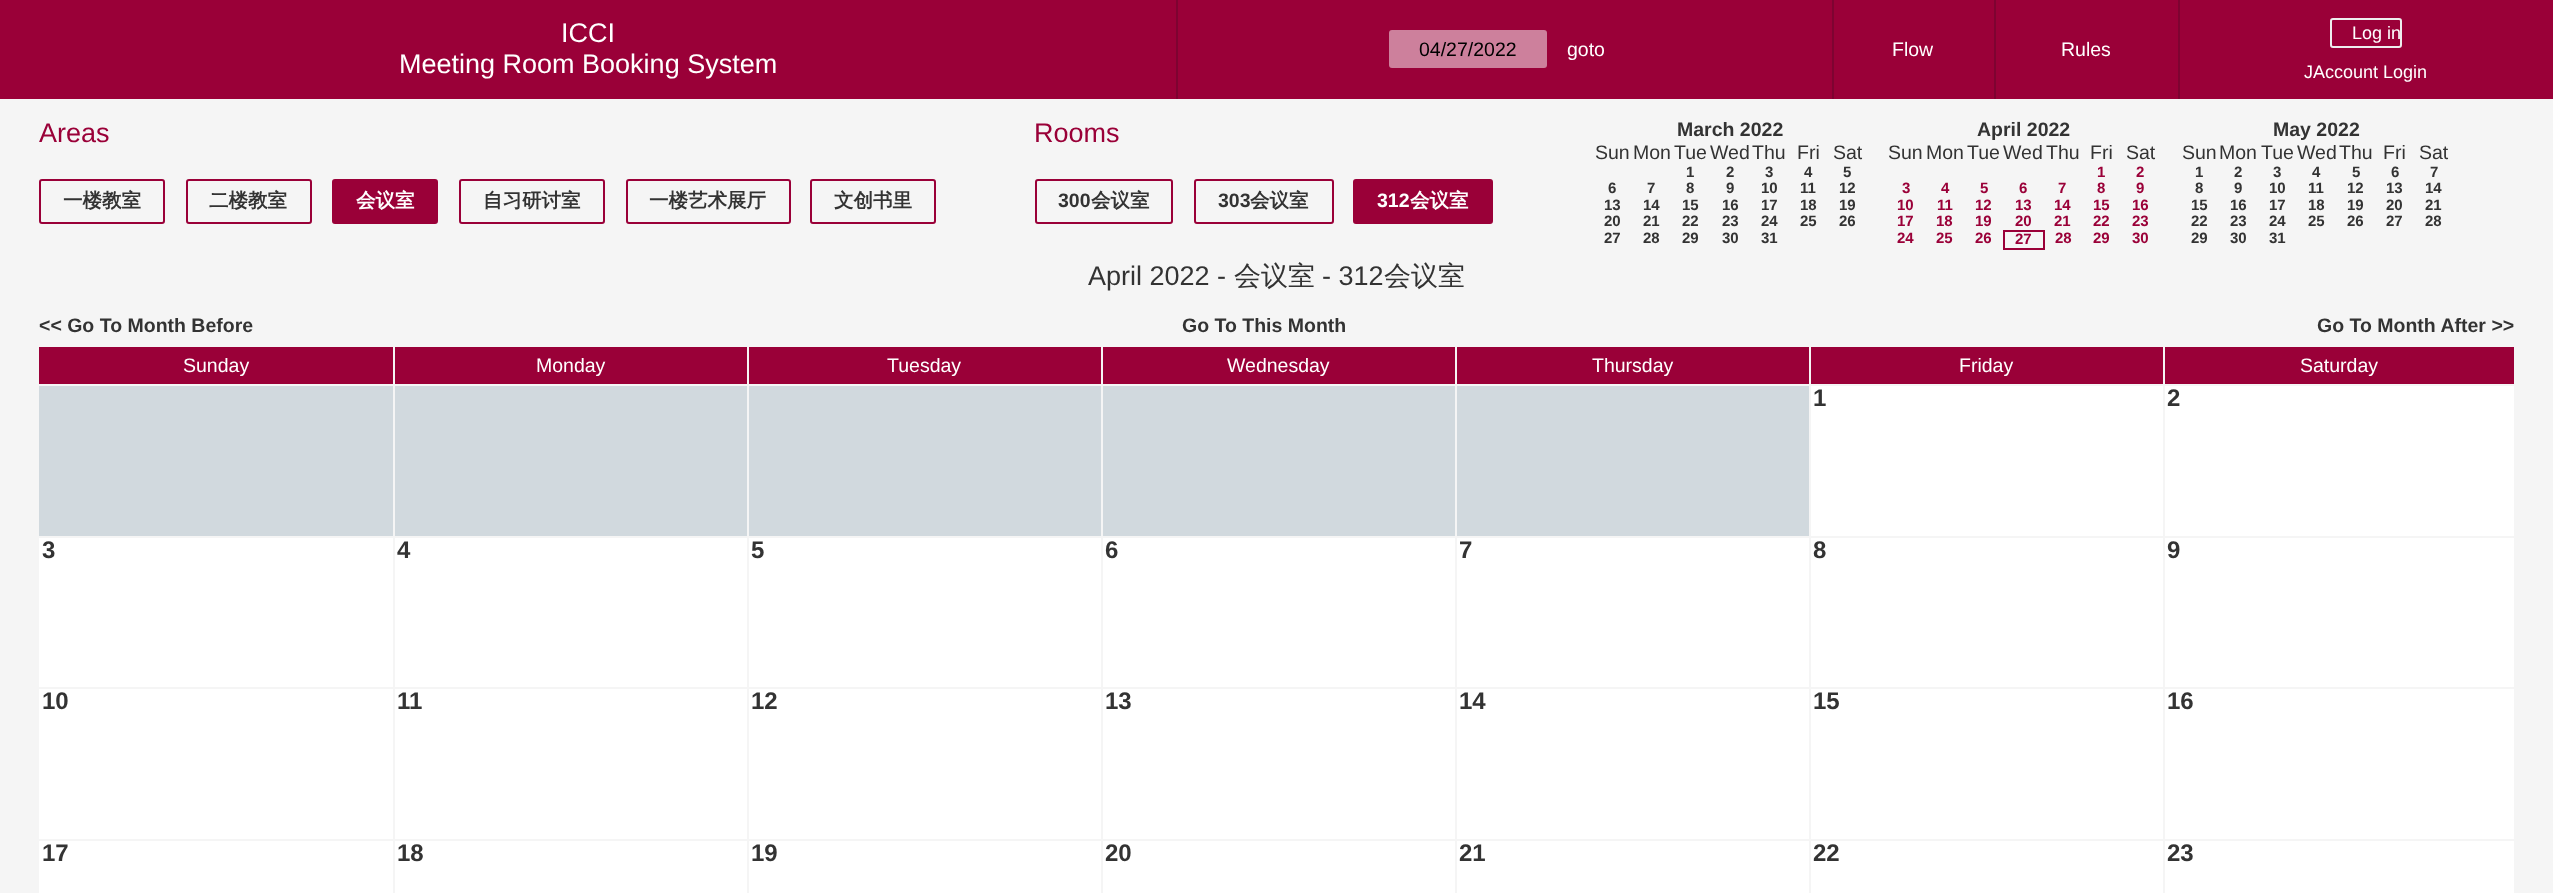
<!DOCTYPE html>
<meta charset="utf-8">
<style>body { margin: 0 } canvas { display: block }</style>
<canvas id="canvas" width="2553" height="893"></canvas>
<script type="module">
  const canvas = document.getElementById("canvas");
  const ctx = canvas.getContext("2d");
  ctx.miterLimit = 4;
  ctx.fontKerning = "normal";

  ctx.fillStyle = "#f5f5f5";
  ctx.fillRect(0, 0, 2553, 893);
  ctx.fillStyle = "#9a0038";
  ctx.fillRect(0, 0, 2553, 99);
  ctx.font = "27px Liberation Sans";
  ctx.fillStyle = "#ffffff";
  ctx.fillText("ICCI", 561, 42);
  ctx.fillText("Meeting Room Booking System", 399, 73);
  ctx.fillStyle = "#7e0331";
  ctx.fillRect(1176, 0, 2, 99);
  ctx.fillStyle = "#cd809c";
  ctx.beginPath();
  ctx.roundRect(1389, 30, 158, 38, 3);
  ctx.fill();
  ctx.font = "19.5px Liberation Sans";
  ctx.fillStyle = "#000000";
  ctx.fillText("04/27/2022", 1419, 56);
  ctx.fillStyle = "#ffffff";
  ctx.fillText("goto", 1567, 56);
  ctx.fillStyle = "#7e0331";
  ctx.fillRect(1832, 0, 2, 99);
  ctx.fillStyle = "#ffffff";
  ctx.fillText("Flow", 1892, 56);
  ctx.fillStyle = "#7e0331";
  ctx.fillRect(1994, 0, 2, 99);
  ctx.fillStyle = "#ffffff";
  ctx.fillText("Rules", 2061, 56);
  ctx.fillStyle = "#7e0331";
  ctx.fillRect(2178, 0, 2, 99);
  ctx.beginPath();
  ctx.roundRect(2331, 19, 70, 28, 2);
  ctx.strokeStyle = "#eeeeee";
  ctx.lineWidth = 2;
  ctx.stroke();
  ctx.font = "18px Liberation Sans";
  ctx.fillStyle = "#ffffff";
  ctx.fillText("Log in", 2352, 39);
  ctx.fillText("JAccount Login", 2304, 78);
  ctx.font = "27px Liberation Sans";
  ctx.fillStyle = "#9a0038";
  ctx.fillText("Areas", 39, 142);
  ctx.beginPath();
  ctx.roundRect(40, 180, 124, 43, 2);
  ctx.strokeStyle = "#9a0038";
  ctx.stroke();
  ctx.font = "bold 19.5px WenQuanYi Zen Hei";
  ctx.fillStyle = "#333333";
  ctx.fillText("一楼教室", 63, 207);
  ctx.beginPath();
  ctx.roundRect(187, 180, 124, 43, 2);
  ctx.stroke();
  ctx.fillText("二楼教室", 209, 207);
  ctx.fillStyle = "#9a0038";
  ctx.beginPath();
  ctx.roundRect(333, 180, 104, 43, 2);
  ctx.fill();
  ctx.stroke();
  ctx.fillStyle = "#ffffff";
  ctx.fillText("会议室", 356, 207);
  ctx.beginPath();
  ctx.roundRect(460, 180, 144, 43, 2);
  ctx.stroke();
  ctx.fillStyle = "#333333";
  ctx.fillText("自习研讨室", 483, 207);
  ctx.beginPath();
  ctx.roundRect(627, 180, 163, 43, 2);
  ctx.stroke();
  ctx.fillText("一楼艺术展厅", 649, 207);
  ctx.beginPath();
  ctx.roundRect(811, 180, 124, 43, 2);
  ctx.stroke();
  ctx.fillText("文创书里", 834, 207);
  ctx.font = "27px Liberation Sans";
  ctx.fillStyle = "#9a0038";
  ctx.fillText("Rooms", 1034, 142);
  ctx.beginPath();
  ctx.roundRect(1036, 180, 136, 43, 2);
  ctx.stroke();
  ctx.font = "bold 19.5px Liberation Sans";
  ctx.fillStyle = "#333333";
  ctx.fillText("300", 1058, 207);
  ctx.font = "bold 19.5px WenQuanYi Zen Hei";
  ctx.fillText("会议室", 1091, 207);
  ctx.beginPath();
  ctx.roundRect(1195, 180, 138, 43, 2);
  ctx.stroke();
  ctx.font = "bold 19.5px Liberation Sans";
  ctx.fillText("303", 1218, 207);
  ctx.font = "bold 19.5px WenQuanYi Zen Hei";
  ctx.fillText("会议室", 1250, 207);
  ctx.fillStyle = "#9a0038";
  ctx.beginPath();
  ctx.roundRect(1354, 180, 138, 43, 2);
  ctx.fill();
  ctx.stroke();
  ctx.font = "bold 19.5px Liberation Sans";
  ctx.fillStyle = "#ffffff";
  ctx.fillText("312", 1377, 207);
  ctx.font = "bold 19.5px WenQuanYi Zen Hei";
  ctx.fillText("会议室", 1410, 207);
  ctx.font = "bold 19.5px Liberation Sans";
  ctx.fillStyle = "#333333";
  ctx.fillText("March 2022", 1677, 136);
  ctx.font = "19.5px Liberation Sans";
  ctx.fillText("Sun", 1595, 159);
  ctx.fillText("Mon", 1633, 159);
  ctx.fillText("Tue", 1674, 159);
  ctx.fillText("Wed", 1710, 159);
  ctx.fillText("Thu", 1752, 159);
  ctx.fillText("Fri", 1797, 159);
  ctx.fillText("Sat", 1833, 159);
  ctx.font = "bold 15px Liberation Sans";
  ctx.fillText("1", 1686, 177);
  ctx.fillText("2", 1726, 177);
  ctx.fillText("3", 1765, 177);
  ctx.fillText("4", 1804, 177);
  ctx.fillText("5", 1843, 177);
  ctx.fillText("6", 1608, 193);
  ctx.fillText("7", 1647, 193);
  ctx.fillText("8", 1686, 193);
  ctx.fillText("9", 1726, 193);
  ctx.fillText("10", 1761, 193);
  ctx.fillText("11", 1800, 193);
  ctx.fillText("12", 1839, 193);
  ctx.fillText("13", 1604, 210);
  ctx.fillText("14", 1643, 210);
  ctx.fillText("15", 1682, 210);
  ctx.fillText("16", 1722, 210);
  ctx.fillText("17", 1761, 210);
  ctx.fillText("18", 1800, 210);
  ctx.fillText("19", 1839, 210);
  ctx.fillText("20", 1604, 226);
  ctx.fillText("21", 1643, 226);
  ctx.fillText("22", 1682, 226);
  ctx.fillText("23", 1722, 226);
  ctx.fillText("24", 1761, 226);
  ctx.fillText("25", 1800, 226);
  ctx.fillText("26", 1839, 226);
  ctx.fillText("27", 1604, 243);
  ctx.fillText("28", 1643, 243);
  ctx.fillText("29", 1682, 243);
  ctx.fillText("30", 1722, 243);
  ctx.fillText("31", 1761, 243);
  ctx.font = "bold 19.5px Liberation Sans";
  ctx.fillText("April 2022", 1977, 136);
  ctx.font = "19.5px Liberation Sans";
  ctx.fillText("Sun", 1888, 159);
  ctx.fillText("Mon", 1926, 159);
  ctx.fillText("Tue", 1967, 159);
  ctx.fillText("Wed", 2003, 159);
  ctx.fillText("Thu", 2046, 159);
  ctx.fillText("Fri", 2090, 159);
  ctx.fillText("Sat", 2126, 159);
  ctx.font = "bold 15px Liberation Sans";
  ctx.fillStyle = "#9a0038";
  ctx.fillText("1", 2097, 177);
  ctx.fillText("2", 2136, 177);
  ctx.fillText("3", 1902, 193);
  ctx.fillText("4", 1941, 193);
  ctx.fillText("5", 1980, 193);
  ctx.fillText("6", 2019, 193);
  ctx.fillText("7", 2058, 193);
  ctx.fillText("8", 2097, 193);
  ctx.fillText("9", 2136, 193);
  ctx.fillText("10", 1897, 210);
  ctx.fillText("11", 1937, 210);
  ctx.fillText("12", 1975, 210);
  ctx.fillText("13", 2015, 210);
  ctx.fillText("14", 2054, 210);
  ctx.fillText("15", 2093, 210);
  ctx.fillText("16", 2132, 210);
  ctx.fillText("17", 1897, 226);
  ctx.fillText("18", 1936, 226);
  ctx.fillText("19", 1975, 226);
  ctx.fillText("20", 2015, 226);
  ctx.fillText("21", 2054, 226);
  ctx.fillText("22", 2093, 226);
  ctx.fillText("23", 2132, 226);
  ctx.fillText("24", 1897, 243);
  ctx.fillText("25", 1936, 243);
  ctx.fillText("26", 1975, 243);
  ctx.fillRect(2003, 230, 42, 2);
  ctx.fillRect(2043, 230, 2, 19);
  ctx.fillRect(2003, 248, 42, 2);
  ctx.fillRect(2003, 230, 2, 19);
  ctx.fillText("27", 2015, 244);
  ctx.fillText("28", 2055, 243);
  ctx.fillText("29", 2093, 243);
  ctx.fillText("30", 2132, 243);
  ctx.font = "bold 19.5px Liberation Sans";
  ctx.fillStyle = "#333333";
  ctx.fillText("May 2022", 2273, 136);
  ctx.font = "19.5px Liberation Sans";
  ctx.fillText("Sun", 2182, 159);
  ctx.fillText("Mon", 2219, 159);
  ctx.fillText("Tue", 2261, 159);
  ctx.fillText("Wed", 2297, 159);
  ctx.fillText("Thu", 2339, 159);
  ctx.fillText("Fri", 2383, 159);
  ctx.fillText("Sat", 2419, 159);
  ctx.font = "bold 15px Liberation Sans";
  ctx.fillText("1", 2195, 177);
  ctx.fillText("2", 2234, 177);
  ctx.fillText("3", 2273, 177);
  ctx.fillText("4", 2312, 177);
  ctx.fillText("5", 2352, 177);
  ctx.fillText("6", 2391, 177);
  ctx.fillText("7", 2430, 177);
  ctx.fillText("8", 2195, 193);
  ctx.fillText("9", 2234, 193);
  ctx.fillText("10", 2269, 193);
  ctx.fillText("11", 2308, 193);
  ctx.fillText("12", 2347, 193);
  ctx.fillText("13", 2386, 193);
  ctx.fillText("14", 2425, 193);
  ctx.fillText("15", 2191, 210);
  ctx.fillText("16", 2230, 210);
  ctx.fillText("17", 2269, 210);
  ctx.fillText("18", 2308, 210);
  ctx.fillText("19", 2347, 210);
  ctx.fillText("20", 2386, 210);
  ctx.fillText("21", 2425, 210);
  ctx.fillText("22", 2191, 226);
  ctx.fillText("23", 2230, 226);
  ctx.fillText("24", 2269, 226);
  ctx.fillText("25", 2308, 226);
  ctx.fillText("26", 2347, 226);
  ctx.fillText("27", 2386, 226);
  ctx.fillText("28", 2425, 226);
  ctx.fillText("29", 2191, 243);
  ctx.fillText("30", 2230, 243);
  ctx.fillText("31", 2269, 243);
  ctx.font = "27px Liberation Sans";
  ctx.fillText("April 2022 -", 1088, 285);
  ctx.font = "500 27px WenQuanYi Zen Hei";
  ctx.fillText("会议室", 1234, 285);
  ctx.font = "27px Liberation Sans";
  ctx.fillText("- 312", 1322, 285);
  ctx.font = "500 27px WenQuanYi Zen Hei";
  ctx.fillText("会议室", 1384, 285);
  ctx.font = "bold 19.5px Liberation Sans";
  ctx.fillText("<< Go To Month Before", 39, 332);
  ctx.fillText("Go To This Month", 1182, 332);
  ctx.fillText("Go To Month After >>", 2317, 332);
  ctx.fillStyle = "#9a0038";
  ctx.fillRect(39, 347, 354, 37);
  ctx.font = "19.5px Liberation Sans";
  ctx.fillStyle = "#ffffff";
  ctx.fillText("Sunday", 183, 372);
  ctx.fillStyle = "#9a0038";
  ctx.fillRect(395, 347, 352, 37);
  ctx.fillStyle = "#ffffff";
  ctx.fillText("Monday", 536, 372);
  ctx.fillStyle = "#9a0038";
  ctx.fillRect(749, 347, 352, 37);
  ctx.fillStyle = "#ffffff";
  ctx.fillText("Tuesday", 887, 372);
  ctx.fillStyle = "#9a0038";
  ctx.fillRect(1103, 347, 352, 37);
  ctx.fillStyle = "#ffffff";
  ctx.fillText("Wednesday", 1227, 372);
  ctx.fillStyle = "#9a0038";
  ctx.fillRect(1457, 347, 352, 37);
  ctx.fillStyle = "#ffffff";
  ctx.fillText("Thursday", 1592, 372);
  ctx.fillStyle = "#9a0038";
  ctx.fillRect(1811, 347, 352, 37);
  ctx.fillStyle = "#ffffff";
  ctx.fillText("Friday", 1959, 372);
  ctx.fillStyle = "#9a0038";
  ctx.fillRect(2165, 347, 349, 37);
  ctx.fillStyle = "#ffffff";
  ctx.fillText("Saturday", 2300, 372);
  ctx.fillStyle = "#d1d9de";
  ctx.fillRect(39, 386, 354, 150);
  ctx.fillRect(395, 386, 352, 150);
  ctx.fillRect(749, 386, 352, 150);
  ctx.fillRect(1103, 386, 352, 150);
  ctx.fillRect(1457, 386, 352, 150);
  ctx.fillStyle = "#ffffff";
  ctx.fillRect(1811, 386, 352, 150);
  ctx.font = "bold 24px Liberation Sans";
  ctx.fillStyle = "#333333";
  ctx.fillText("1", 1813, 406);
  ctx.fillStyle = "#ffffff";
  ctx.fillRect(2165, 386, 349, 150);
  ctx.fillStyle = "#333333";
  ctx.fillText("2", 2167, 406);
  ctx.fillStyle = "#ffffff";
  ctx.fillRect(39, 538, 354, 149);
  ctx.fillStyle = "#333333";
  ctx.fillText("3", 42, 558);
  ctx.fillStyle = "#ffffff";
  ctx.fillRect(395, 538, 352, 149);
  ctx.fillStyle = "#333333";
  ctx.fillText("4", 397, 558);
  ctx.fillStyle = "#ffffff";
  ctx.fillRect(749, 538, 352, 149);
  ctx.fillStyle = "#333333";
  ctx.fillText("5", 751, 558);
  ctx.fillStyle = "#ffffff";
  ctx.fillRect(1103, 538, 352, 149);
  ctx.fillStyle = "#333333";
  ctx.fillText("6", 1105, 558);
  ctx.fillStyle = "#ffffff";
  ctx.fillRect(1457, 538, 352, 149);
  ctx.fillStyle = "#333333";
  ctx.fillText("7", 1459, 558);
  ctx.fillStyle = "#ffffff";
  ctx.fillRect(1811, 538, 352, 149);
  ctx.fillStyle = "#333333";
  ctx.fillText("8", 1813, 558);
  ctx.fillStyle = "#ffffff";
  ctx.fillRect(2165, 538, 349, 149);
  ctx.fillStyle = "#333333";
  ctx.fillText("9", 2167, 558);
  ctx.fillStyle = "#ffffff";
  ctx.fillRect(39, 689, 354, 150);
  ctx.fillStyle = "#333333";
  ctx.fillText("10", 42, 709);
  ctx.fillStyle = "#ffffff";
  ctx.fillRect(395, 689, 352, 150);
  ctx.fillStyle = "#333333";
  ctx.fillText("11", 397, 709);
  ctx.fillStyle = "#ffffff";
  ctx.fillRect(749, 689, 352, 150);
  ctx.fillStyle = "#333333";
  ctx.fillText("12", 751, 709);
  ctx.fillStyle = "#ffffff";
  ctx.fillRect(1103, 689, 352, 150);
  ctx.fillStyle = "#333333";
  ctx.fillText("13", 1105, 709);
  ctx.fillStyle = "#ffffff";
  ctx.fillRect(1457, 689, 352, 150);
  ctx.fillStyle = "#333333";
  ctx.fillText("14", 1459, 709);
  ctx.fillStyle = "#ffffff";
  ctx.fillRect(1811, 689, 352, 150);
  ctx.fillStyle = "#333333";
  ctx.fillText("15", 1813, 709);
  ctx.fillStyle = "#ffffff";
  ctx.fillRect(2165, 689, 349, 150);
  ctx.fillStyle = "#333333";
  ctx.fillText("16", 2167, 709);
  ctx.fillStyle = "#ffffff";
  ctx.fillRect(39, 841, 354, 52);
  ctx.fillStyle = "#333333";
  ctx.fillText("17", 42, 861);
  ctx.fillStyle = "#ffffff";
  ctx.fillRect(395, 841, 352, 52);
  ctx.fillStyle = "#333333";
  ctx.fillText("18", 397, 861);
  ctx.fillStyle = "#ffffff";
  ctx.fillRect(749, 841, 352, 52);
  ctx.fillStyle = "#333333";
  ctx.fillText("19", 751, 861);
  ctx.fillStyle = "#ffffff";
  ctx.fillRect(1103, 841, 352, 52);
  ctx.fillStyle = "#333333";
  ctx.fillText("20", 1105, 861);
  ctx.fillStyle = "#ffffff";
  ctx.fillRect(1457, 841, 352, 52);
  ctx.fillStyle = "#333333";
  ctx.fillText("21", 1459, 861);
  ctx.fillStyle = "#ffffff";
  ctx.fillRect(1811, 841, 352, 52);
  ctx.fillStyle = "#333333";
  ctx.fillText("22", 1813, 861);
  ctx.fillStyle = "#ffffff";
  ctx.fillRect(2165, 841, 349, 52);
  ctx.fillStyle = "#333333";
  ctx.fillText("23", 2167, 861);
</script>
